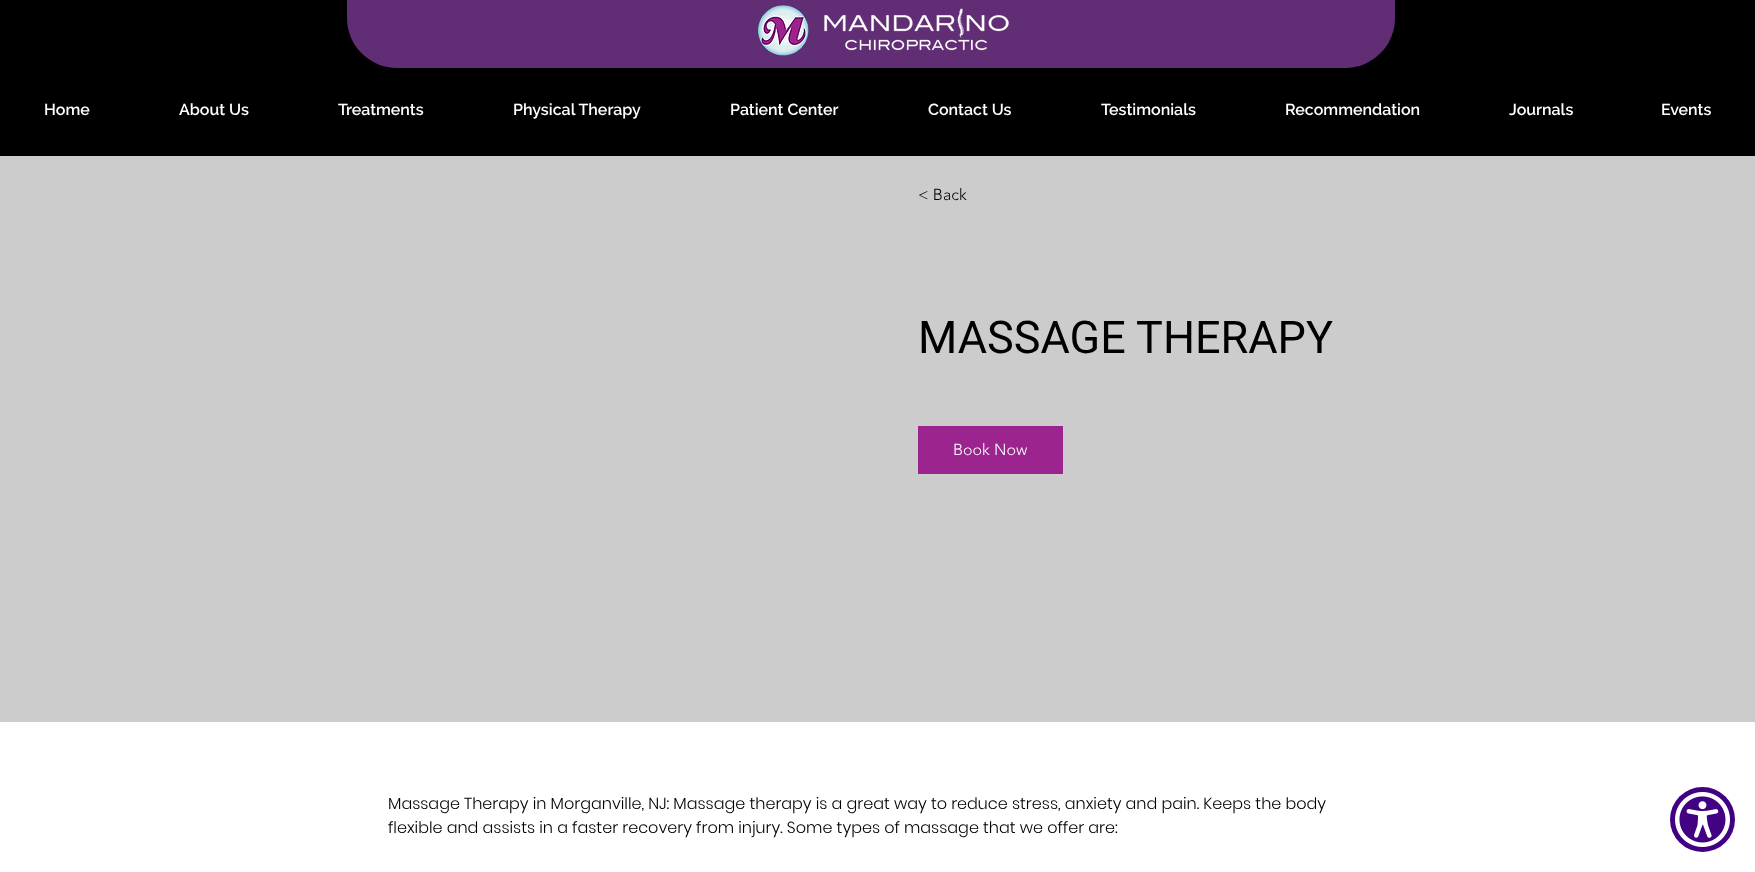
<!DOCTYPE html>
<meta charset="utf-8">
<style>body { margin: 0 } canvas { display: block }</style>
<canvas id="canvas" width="1755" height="872"></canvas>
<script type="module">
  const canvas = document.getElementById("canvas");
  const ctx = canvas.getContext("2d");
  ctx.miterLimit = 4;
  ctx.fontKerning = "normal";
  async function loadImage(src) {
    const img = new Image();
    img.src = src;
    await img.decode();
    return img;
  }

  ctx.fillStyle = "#ffffff";
  ctx.fillRect(0, 0, 1755, 872);
  ctx.fillStyle = "#000000";
  ctx.fillRect(0, 0, 1755, 156);
  ctx.fillStyle = "#612d74";
  ctx.beginPath();
  ctx.roundRect(347, 0, 1048, 68, [0, 0, 50, 50]);
  ctx.fill();
  ctx.drawImage(await loadImage("img1.png"), 757, 5, 252, 51);
  ctx.font = "600 16px Raleway";
  ctx.fillStyle = "#ffffff";
  ctx.fillText("Home", 44, 115);
  ctx.fillText("About Us", 179, 115);
  ctx.fillText("Treatments", 338, 115);
  ctx.fillText("Physical Therapy", 513, 115);
  ctx.fillText("Patient Center", 730, 115);
  ctx.fillText("Contact Us", 928, 115);
  ctx.fillText("Testimonials", 1101, 115);
  ctx.fillText("Recommendation", 1285, 115);
  ctx.fillText("Journals", 1509, 115);
  ctx.fillText("Events", 1661, 115);
  ctx.fillStyle = "#cccccc";
  ctx.fillRect(0, 156, 1755, 566);
  ctx.font = "300 16px 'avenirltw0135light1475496'";
  ctx.fillStyle = "#000000";
  ctx.fillText("< Back", 918, 200);
  ctx.font = "45px Roboto";
  ctx.fillText("MASSAGE THERAPY", 918, 353);
  ctx.fillStyle = "#9c248e";
  ctx.fillRect(918, 426, 145, 48);
  ctx.font = "300 16px 'avenirltw0135light1475496'";
  ctx.fillStyle = "#ffffff";
  ctx.fillText("Book Now", 953, 455);
  ctx.font = "300 16px Poppins";
  ctx.fillStyle = "#000000";
  ctx.fillText("Massage Therapy in Morganville, NJ: Massage therapy is a great way to reduce stress, anxiety and pain. Keeps the body", 388, 809);
  ctx.fillText("flexible and assists in a faster recovery from injury. Some types of massage that we offer are:", 388, 833);
  ctx.fillStyle = "#420083";
  ctx.beginPath();
  ctx.arc(1702.5, 819.5, 32.5, 0, Math.PI * 2);
  ctx.fill();
  ctx.drawImage(await loadImage("img2.png"), 1675, 792, 55, 55);
</script>
